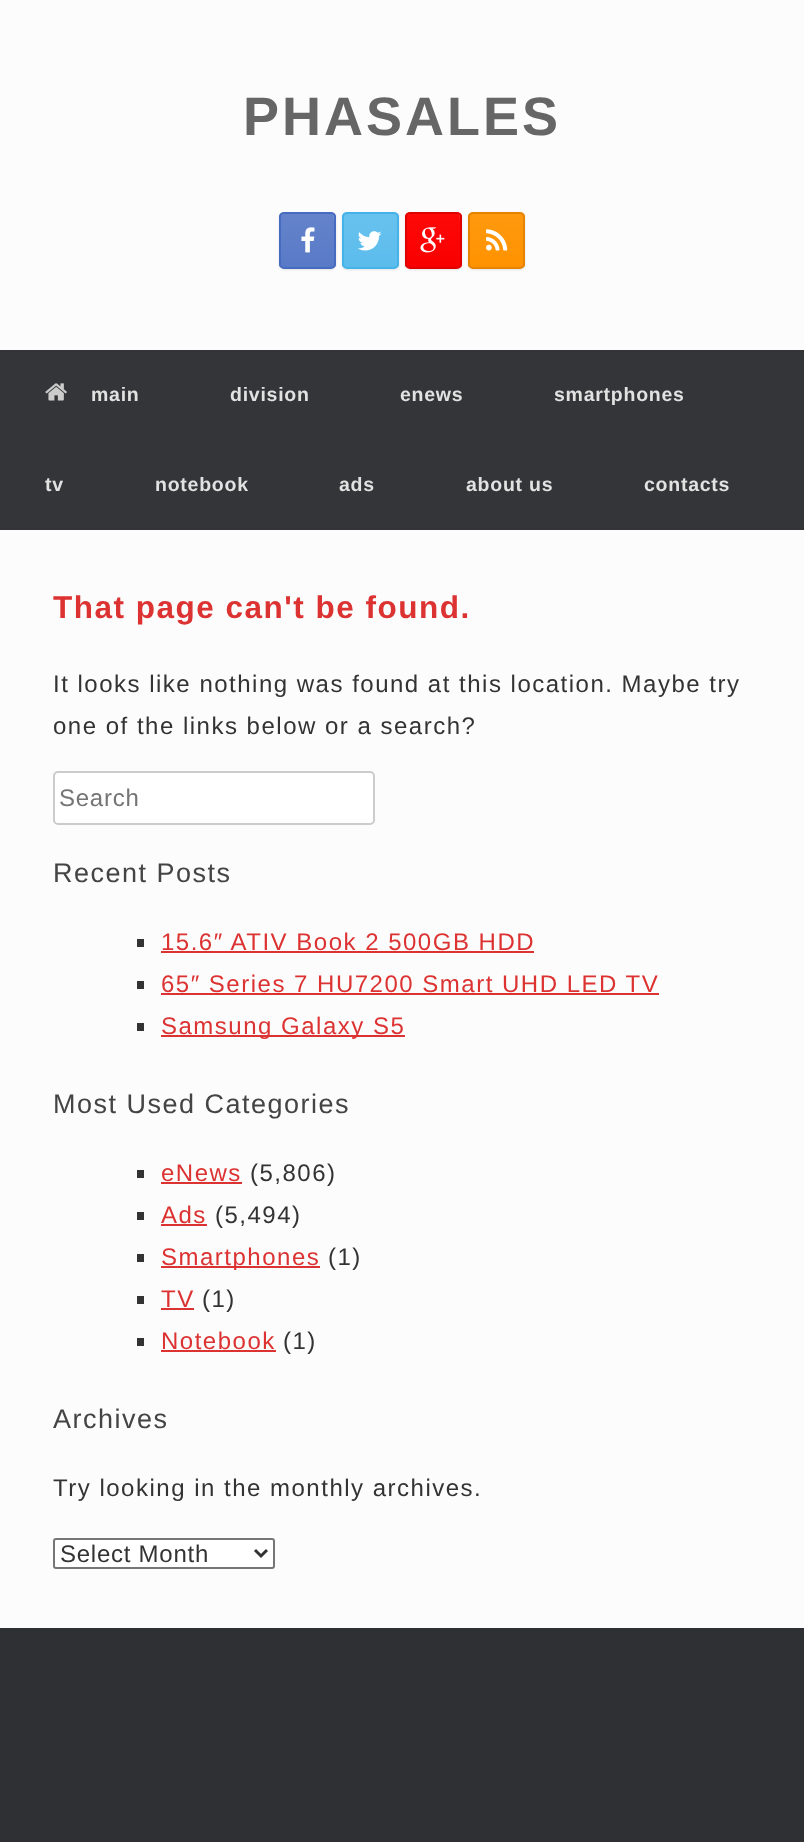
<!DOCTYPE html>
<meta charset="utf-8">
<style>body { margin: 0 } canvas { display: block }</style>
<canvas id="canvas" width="804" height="1842"></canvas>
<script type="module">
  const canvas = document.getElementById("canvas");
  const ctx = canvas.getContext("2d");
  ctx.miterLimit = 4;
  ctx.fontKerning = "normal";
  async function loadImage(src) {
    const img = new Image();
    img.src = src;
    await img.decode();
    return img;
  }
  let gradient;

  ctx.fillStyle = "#2f3033";
  ctx.fillRect(0, 0, 804, 1842);
  ctx.fillStyle = "#fcfcfc";
  ctx.fillRect(0, 0, 804, 350);
  ctx.letterSpacing = "3px";
  ctx.font = "bold 54px Liberation Sans";
  ctx.fillStyle = "#666666";
  ctx.fillText("PHASALES", 243, 135);
  ctx.fillStyle = "rgba(0, 0, 0, 0.1)";
  ctx.filter = "blur(1px)";
  ctx.beginPath();
  ctx.roundRect(279, 213, 57, 57, 5);
  ctx.fill();
  ctx.filter = "none";
  ctx.save();
  ctx.beginPath();
  ctx.roundRect(279, 212, 57, 57, 5);
  ctx.clip();
  gradient = ctx.createLinearGradient(281, 267, 281, 213);
  gradient.addColorStop(0, "#597ac7");
  gradient.addColorStop(1, "#6483cb");
  ctx.fillStyle = gradient;
  ctx.fillRect(279, 213, 57, 54);
  ctx.restore();
  ctx.fillStyle = "rgba(255, 255, 255, 0.2)";
  ctx.beginPath();
  ctx.moveTo(284, 214);
  ctx.lineTo(332, 214);
  ctx.bezierCurveTo(335, 216, 334, 232, 334, 234);
  ctx.lineTo(334, 266);
  ctx.bezierCurveTo(335, 266, 335, 265, 335, 264);
  ctx.lineTo(335, 216);
  ctx.bezierCurveTo(335, 214, 334, 213, 332, 213);
  ctx.lineTo(284, 213);
  ctx.bezierCurveTo(283, 213, 281, 214, 281, 215);
  ctx.closePath();
  ctx.fill();
  ctx.beginPath();
  ctx.roundRect(280, 213, 55, 55, 4);
  ctx.strokeStyle = "#466bc1";
  ctx.lineWidth = 2;
  ctx.stroke();
  ctx.drawImage(await loadImage("img1.png"), 301, 227, 14, 26);
  ctx.fillStyle = "rgba(0, 0, 0, 0.1)";
  ctx.filter = "blur(1px)";
  ctx.beginPath();
  ctx.roundRect(342, 213, 57, 57, 5);
  ctx.fill();
  ctx.filter = "none";
  ctx.save();
  ctx.beginPath();
  ctx.roundRect(342, 212, 57, 57, 5);
  ctx.clip();
  gradient = ctx.createLinearGradient(344, 267, 344, 213);
  gradient.addColorStop(0, "#5bbcec");
  gradient.addColorStop(1, "#69c2ee");
  ctx.fillStyle = gradient;
  ctx.fillRect(342, 213, 57, 54);
  ctx.restore();
  ctx.beginPath();
  ctx.roundRect(343, 213, 55, 55, 4);
  ctx.strokeStyle = "#44b3e9";
  ctx.stroke();
  ctx.drawImage(await loadImage("img2.png"), 358, 231, 24, 20);
  ctx.filter = "blur(1px)";
  ctx.beginPath();
  ctx.roundRect(405, 213, 57, 57, 5);
  ctx.fill();
  ctx.filter = "none";
  ctx.save();
  ctx.beginPath();
  ctx.roundRect(405, 212, 57, 57, 5);
  ctx.clip();
  gradient = ctx.createLinearGradient(407, 267, 407, 213);
  gradient.addColorStop(0, "#f80000");
  gradient.addColorStop(1, "#ff0808");
  ctx.fillStyle = gradient;
  ctx.fillRect(405, 213, 57, 54);
  ctx.restore();
  ctx.fillStyle = "rgba(255, 255, 255, 0.2)";
  ctx.beginPath();
  ctx.moveTo(410, 214);
  ctx.lineTo(458, 214);
  ctx.bezierCurveTo(461, 216, 460, 232, 460, 234);
  ctx.lineTo(460, 266);
  ctx.bezierCurveTo(461, 266, 461, 265, 461, 264);
  ctx.lineTo(461, 216);
  ctx.bezierCurveTo(461, 214, 460, 213, 458, 213);
  ctx.lineTo(410, 213);
  ctx.bezierCurveTo(409, 213, 407, 214, 407, 215);
  ctx.closePath();
  ctx.fill();
  ctx.beginPath();
  ctx.roundRect(406, 213, 55, 55, 4);
  ctx.strokeStyle = "#df0000";
  ctx.stroke();
  ctx.drawImage(await loadImage("img3.png"), 420, 227, 25, 26);
  ctx.fillStyle = "rgba(0, 0, 0, 0.1)";
  ctx.filter = "blur(1px)";
  ctx.beginPath();
  ctx.roundRect(468, 213, 57, 57, 5);
  ctx.fill();
  ctx.filter = "none";
  ctx.save();
  ctx.beginPath();
  ctx.roundRect(468, 212, 57, 57, 5);
  ctx.clip();
  gradient = ctx.createLinearGradient(470, 267, 470, 213);
  gradient.addColorStop(0, "#ff9200");
  gradient.addColorStop(1, "#ff990f");
  ctx.fillStyle = gradient;
  ctx.fillRect(468, 213, 57, 54);
  ctx.restore();
  ctx.beginPath();
  ctx.roundRect(469, 213, 55, 55, 4);
  ctx.strokeStyle = "#e68300";
  ctx.stroke();
  ctx.drawImage(await loadImage("img4.png"), 486, 229, 22, 22);
  ctx.fillStyle = "#343538";
  ctx.fillRect(0, 350, 804, 180);
  ctx.drawImage(await loadImage("img5.png"), 45, 383, 22, 18);
  ctx.letterSpacing = "0.75px";
  ctx.font = "bold 19.5px Liberation Sans";
  ctx.fillStyle = "#e2e2e2";
  ctx.fillText("main", 91, 401);
  ctx.fillText("division", 230, 401);
  ctx.fillText("enews", 400, 401);
  ctx.fillText("smartphones", 554, 401);
  ctx.fillText("tv", 45, 491);
  ctx.fillText("notebook", 155, 491);
  ctx.fillText("ads", 339, 491);
  ctx.fillText("about us", 466, 491);
  ctx.fillText("contacts", 644, 491);
  ctx.fillStyle = "#fcfcfc";
  ctx.fillRect(0, 530, 804, 1098);
  ctx.letterSpacing = "1.5px";
  ctx.font = "bold 31.5px Liberation Sans";
  ctx.fillStyle = "#dc3232";
  ctx.fillText("That page can't be found.", 53, 618);
  ctx.font = "24px Liberation Sans";
  ctx.fillStyle = "#333333";
  ctx.fillText("It looks like nothing was found at this location. Maybe try", 53, 692);
  ctx.fillText("one of the links below or a search?", 53, 734);
  ctx.fillStyle = "#ffffff";
  ctx.beginPath();
  ctx.roundRect(54, 772, 320, 52, 4);
  ctx.fill();
  ctx.strokeStyle = "#cccccc";
  ctx.stroke();
  ctx.letterSpacing = "0.75px";
  ctx.fillStyle = "#757575";
  ctx.fillText("Search", 59, 806);
  ctx.letterSpacing = "1.5px";
  ctx.font = "27px Liberation Sans";
  ctx.fillStyle = "#444444";
  ctx.fillText("Recent Posts", 53, 882);
  ctx.fillStyle = "#333333";
  ctx.fillRect(137, 939, 7, 8);
  ctx.font = "24px Liberation Sans";
  ctx.fillStyle = "#dc3232";
  ctx.fillText("15.6″ ATIV Book 2 500GB HDD", 161, 950);
  ctx.fillRect(161, 951, 373, 2);
  ctx.fillStyle = "#333333";
  ctx.fillRect(137, 981, 7, 8);
  ctx.fillStyle = "#dc3232";
  ctx.fillText("65″ Series 7 HU7200 Smart UHD LED TV", 161, 992);
  ctx.fillRect(161, 993, 498, 2);
  ctx.fillStyle = "#333333";
  ctx.fillRect(137, 1023, 7, 8);
  ctx.fillStyle = "#dc3232";
  ctx.fillRect(161, 1035, 244, 2);
  ctx.fillText("Samsung Galaxy S5", 161, 1034);
  ctx.font = "27px Liberation Sans";
  ctx.fillStyle = "#444444";
  ctx.fillText("Most Used Categories", 53, 1113);
  ctx.fillStyle = "#333333";
  ctx.fillRect(137, 1170, 7, 8);
  ctx.font = "24px Liberation Sans";
  ctx.fillStyle = "#dc3232";
  ctx.fillText("eNews", 161, 1181);
  ctx.fillRect(161, 1182, 81, 2);
  ctx.fillStyle = "#333333";
  ctx.fillText("(5,806)", 250, 1181);
  ctx.fillRect(137, 1212, 7, 8);
  ctx.fillStyle = "#dc3232";
  ctx.fillText("Ads", 161, 1223);
  ctx.fillRect(161, 1224, 46, 2);
  ctx.fillStyle = "#333333";
  ctx.fillText("(5,494)", 215, 1223);
  ctx.fillRect(137, 1254, 7, 8);
  ctx.fillStyle = "#dc3232";
  ctx.fillRect(161, 1266, 159, 2);
  ctx.fillText("Smartphones", 161, 1265);
  ctx.fillStyle = "#333333";
  ctx.fillText("(1)", 328, 1265);
  ctx.fillRect(137, 1296, 7, 8);
  ctx.fillStyle = "#dc3232";
  ctx.fillText("TV", 161, 1307);
  ctx.fillRect(161, 1308, 33, 2);
  ctx.fillStyle = "#333333";
  ctx.fillText("(1)", 202, 1307);
  ctx.fillRect(137, 1338, 7, 8);
  ctx.fillStyle = "#dc3232";
  ctx.fillText("Notebook", 161, 1349);
  ctx.fillRect(161, 1350, 115, 2);
  ctx.fillStyle = "#333333";
  ctx.fillText("(1)", 283, 1349);
  ctx.font = "27px Liberation Sans";
  ctx.fillStyle = "#444444";
  ctx.fillText("Archives", 53, 1428);
  ctx.font = "24px Liberation Sans";
  ctx.fillStyle = "#333333";
  ctx.fillText("Try looking in the monthly archives.", 53, 1496);
  ctx.fillStyle = "#ffffff";
  ctx.beginPath();
  ctx.roundRect(54, 1539, 220, 29, 2);
  ctx.fill();
  ctx.strokeStyle = "#767676";
  ctx.stroke();
  ctx.beginPath();
  ctx.moveTo(255, 1550);
  ctx.lineTo(261, 1556);
  ctx.lineTo(267, 1550);
  ctx.strokeStyle = "#333333";
  ctx.lineWidth = 3;
  ctx.stroke();
  ctx.letterSpacing = "0.75px";
  ctx.fillStyle = "#333333";
  ctx.fillText("Select Month", 60, 1562);
</script>
